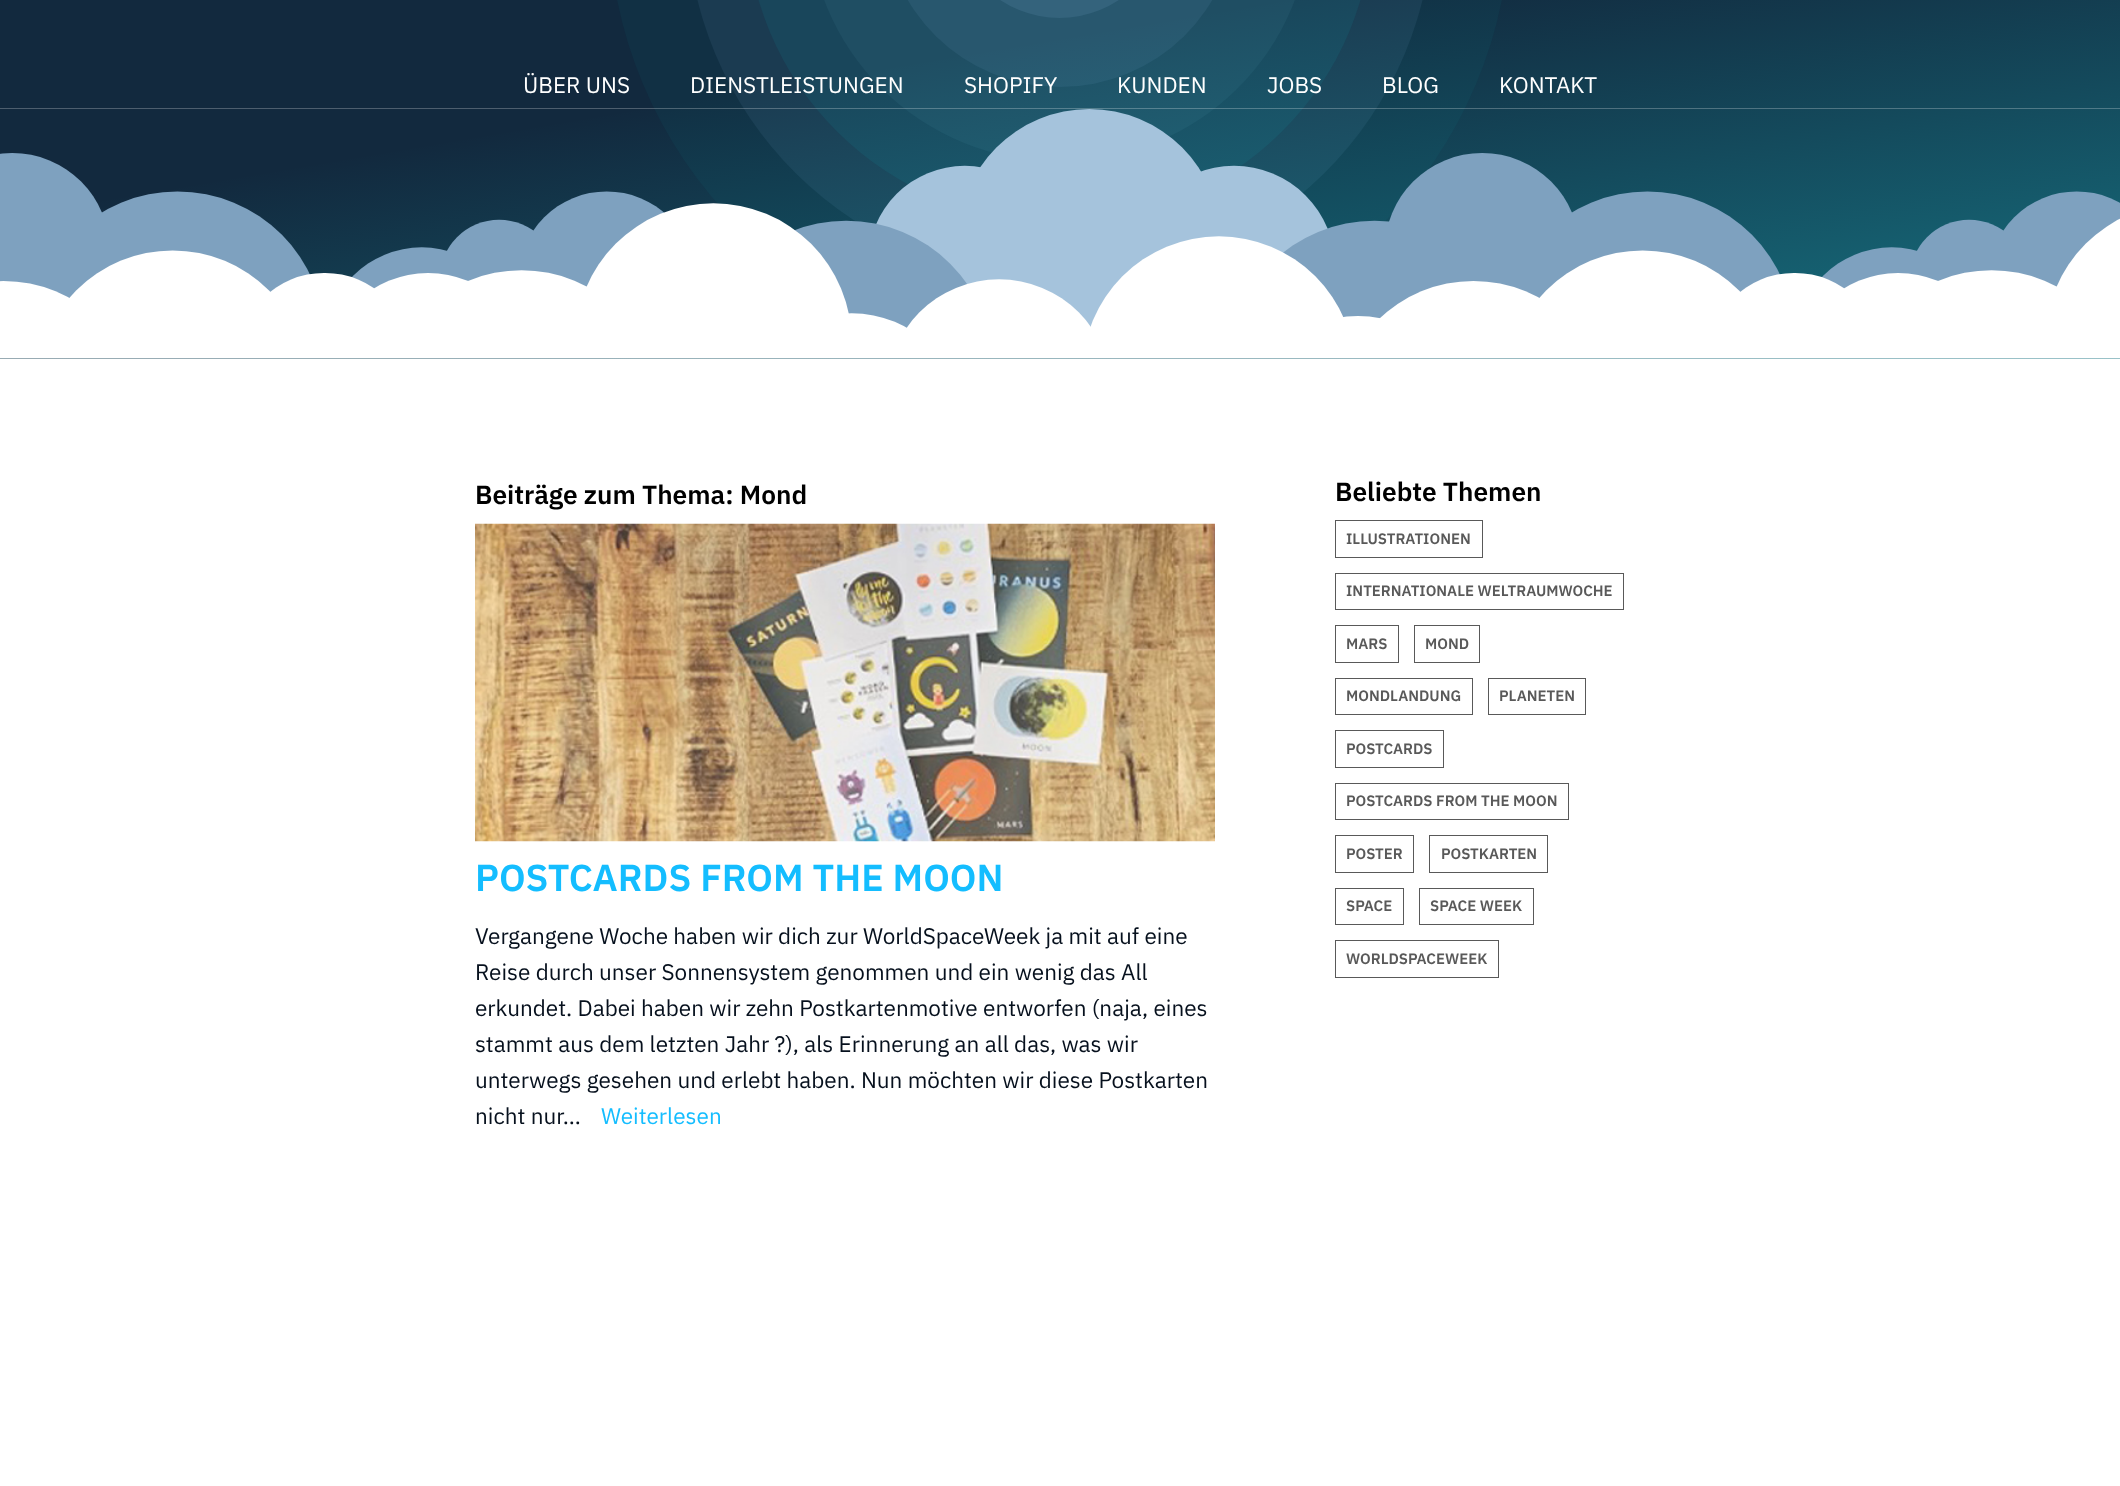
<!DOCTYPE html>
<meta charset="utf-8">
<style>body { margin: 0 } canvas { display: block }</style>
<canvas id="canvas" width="2120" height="1486"></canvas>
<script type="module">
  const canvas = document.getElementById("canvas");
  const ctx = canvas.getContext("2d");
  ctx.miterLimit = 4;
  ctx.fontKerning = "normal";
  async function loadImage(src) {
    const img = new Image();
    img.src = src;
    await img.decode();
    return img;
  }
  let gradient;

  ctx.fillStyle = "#ffffff";
  ctx.fillRect(0, 0, 2120, 1486);
  ctx.fillStyle = "#12293e";
  ctx.fillRect(0, 0, 2120, 359);
  ctx.fillStyle = "#113044";
  ctx.beginPath();
  ctx.ellipse(1059.5, -86.5, 451, 445, 0, 0, Math.PI * 2);
  ctx.fill();
  ctx.fillStyle = "#1b3b51";
  ctx.beginPath();
  ctx.ellipse(1060, -86.5, 373, 368, 0, 0, Math.PI * 2);
  ctx.fill();
  ctx.fillStyle = "#19465b";
  ctx.beginPath();
  ctx.ellipse(1059.5, -86.5, 313.5, 309.5, 0, 0, Math.PI * 2);
  ctx.fill();
  ctx.fillStyle = "#1f4e63";
  ctx.beginPath();
  ctx.ellipse(1059.5, -86, 251, 247.5, 0, 0, Math.PI * 2);
  ctx.fill();
  ctx.fillStyle = "#28576e";
  ctx.beginPath();
  ctx.ellipse(1060, -86, 175.5, 173, 0, 0, Math.PI * 2);
  ctx.fill();
  ctx.fillStyle = "#34637c";
  ctx.beginPath();
  ctx.ellipse(1059.5, -86, 105.5, 104, 0, 0, Math.PI * 2);
  ctx.fill();
  gradient = ctx.createLinearGradient(1001, -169, 1119, 528);
  gradient.addColorStop(0.3, "rgba(29, 226, 231, 0)");
  gradient.addColorStop(1, "rgba(29, 226, 231, 0.4)");
  ctx.fillStyle = gradient;
  ctx.fillRect(0, 0, 2120, 359);
  ctx.font = "22.5px IBM Plex Sans";
  ctx.fillStyle = "#ffffff";
  ctx.fillText("ÜBER UNS", 523, 93);
  ctx.fillText("DIENSTLEISTUNGEN", 690, 93);
  ctx.fillText("SHOPIFY", 964, 93);
  ctx.fillText("KUNDEN", 1117, 93);
  ctx.fillText("JOBS", 1267, 93);
  ctx.fillText("BLOG", 1382, 93);
  ctx.fillText("KONTAKT", 1499, 93);
  ctx.drawImage(await loadImage("img1.png"), 0, 108, 2120, 251);
  ctx.font = "600 26.25px IBM Plex Sans";
  ctx.fillStyle = "#000000";
  ctx.fillText("Beiträge zum Thema: Mond", 475, 504);
  ctx.drawImage(await loadImage("img2.png"), 475, 523, 740, 319);
  ctx.font = "600 37.5px IBM Plex Sans";
  ctx.fillStyle = "#14bdff";
  ctx.fillText("POSTCARDS FROM THE MOON", 475, 891);
  ctx.font = "22.5px IBM Plex Sans";
  ctx.fillStyle = "#06101d";
  ctx.fillText("Vergangene Woche haben wir dich zur WorldSpaceWeek ja mit auf eine", 475, 944);
  ctx.fillText("Reise durch unser Sonnensystem genommen und ein wenig das All", 475, 980);
  ctx.fillText("erkundet. Dabei haben wir zehn Postkartenmotive entworfen (naja, eines", 475, 1016);
  ctx.fillText("stammt aus dem letzten Jahr ?), als Erinnerung an all das, was wir", 475, 1052);
  ctx.fillText("unterwegs gesehen und erlebt haben. Nun möchten wir diese Postkarten", 475, 1088);
  ctx.fillText("nicht nur…", 475, 1124);
  ctx.fillStyle = "#14bdff";
  ctx.fillText("Weiterlesen", 601, 1124);
  ctx.font = "600 26.25px IBM Plex Sans";
  ctx.fillStyle = "#000000";
  ctx.fillText("Beliebte Themen", 1335, 501);
  ctx.strokeStyle = "#595959";
  ctx.strokeRect(1335.5, 520.5, 147, 37);
  ctx.font = "600 15px IBM Plex Sans";
  ctx.fillStyle = "#595959";
  ctx.fillText("ILLUSTRATIONEN", 1346, 544);
  ctx.strokeRect(1335.5, 573.5, 288, 36);
  ctx.fillText("INTERNATIONALE WELTRAUMWOCHE", 1346, 596);
  ctx.strokeRect(1335.5, 625.5, 63, 37);
  ctx.fillText("MARS", 1346, 649);
  ctx.strokeRect(1414.5, 625.5, 65, 37);
  ctx.fillText("MOND", 1425, 649);
  ctx.strokeRect(1335.5, 678.5, 137, 36);
  ctx.fillText("MONDLANDUNG", 1346, 701);
  ctx.strokeRect(1488.5, 678.5, 97, 36);
  ctx.fillText("PLANETEN", 1499, 701);
  ctx.strokeRect(1335.5, 730.5, 108, 37);
  ctx.fillText("POSTCARDS", 1346, 754);
  ctx.strokeRect(1335.5, 783.5, 233, 36);
  ctx.fillText("POSTCARDS FROM THE MOON", 1346, 806);
  ctx.strokeRect(1335.5, 835.5, 78, 37);
  ctx.fillText("POSTER", 1346, 859);
  ctx.strokeRect(1429.5, 835.5, 118, 37);
  ctx.fillText("POSTKARTEN", 1441, 859);
  ctx.strokeRect(1335.5, 888.5, 68, 36);
  ctx.fillText("SPACE", 1346, 911);
  ctx.strokeRect(1419.5, 888.5, 114, 36);
  ctx.fillText("SPACE WEEK", 1430, 911);
  ctx.strokeRect(1335.5, 940.5, 163, 37);
  ctx.fillText("WORLDSPACEWEEK", 1346, 964);
</script>
